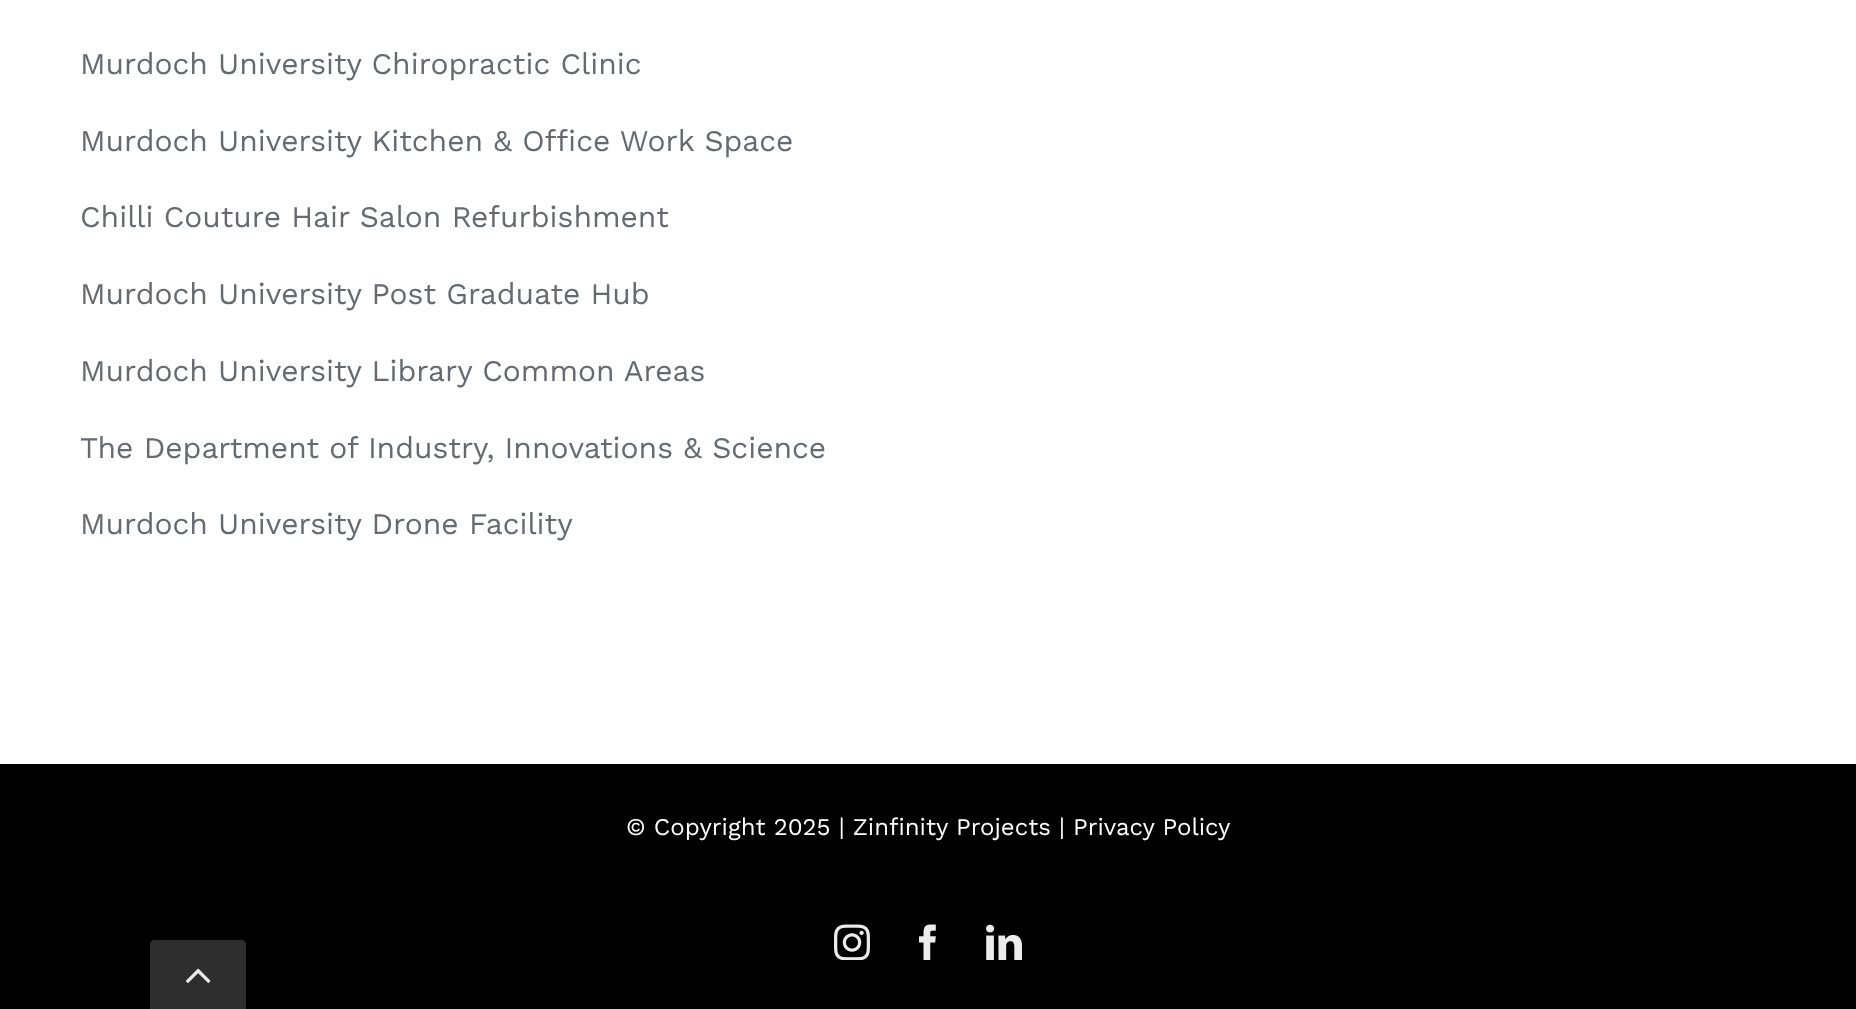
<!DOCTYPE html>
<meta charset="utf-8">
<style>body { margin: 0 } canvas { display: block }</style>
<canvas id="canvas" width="1856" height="1009"></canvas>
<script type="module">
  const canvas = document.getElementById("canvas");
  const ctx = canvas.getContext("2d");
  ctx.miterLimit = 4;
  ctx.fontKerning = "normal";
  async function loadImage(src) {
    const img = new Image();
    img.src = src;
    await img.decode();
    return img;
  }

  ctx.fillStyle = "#ffffff";
  ctx.fillRect(0, 0, 1856, 1009);
  ctx.font = "30px Work Sans";
  ctx.fillStyle = "#656a70";
  ctx.fillText("Murdoch University Chiropractic Clinic", 80, 74);
  ctx.fillText("Murdoch University Kitchen & Office Work Space", 80, 151);
  ctx.fillText("Chilli Couture Hair Salon Refurbishment", 80, 227);
  ctx.fillText("Murdoch University Post Graduate Hub", 80, 304);
  ctx.fillText("Murdoch University Library Common Areas", 80, 381);
  ctx.fillText("The Department of Industry, Innovations & Science", 80, 458);
  ctx.fillText("Murdoch University Drone Facility", 80, 534);
  ctx.fillStyle = "#000000";
  ctx.fillRect(0, 764, 1856, 245);
  ctx.font = "24px Work Sans";
  ctx.fillStyle = "#ffffff";
  ctx.fillText("© Copyright 2025 | Zinfinity Projects | Privacy Policy", 626, 835);
  ctx.drawImage(await loadImage("img1.png"), 834, 924, 36, 36);
  ctx.drawImage(await loadImage("img2.png"), 919, 924, 17, 36);
  ctx.drawImage(await loadImage("img3.png"), 986, 924, 36, 36);
  ctx.fillStyle = "#2e2e2e";
  ctx.beginPath();
  ctx.moveTo(154, 940);
  ctx.lineTo(242, 940);
  ctx.bezierCurveTo(244, 940, 246, 942, 246, 944);
  ctx.lineTo(246, 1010);
  ctx.lineTo(150, 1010);
  ctx.lineTo(150, 944);
  ctx.bezierCurveTo(150, 942, 152, 940, 154, 940);
  ctx.closePath();
  ctx.fill();
  ctx.drawImage(await loadImage("img4.png"), 186, 968, 25, 15);
</script>
